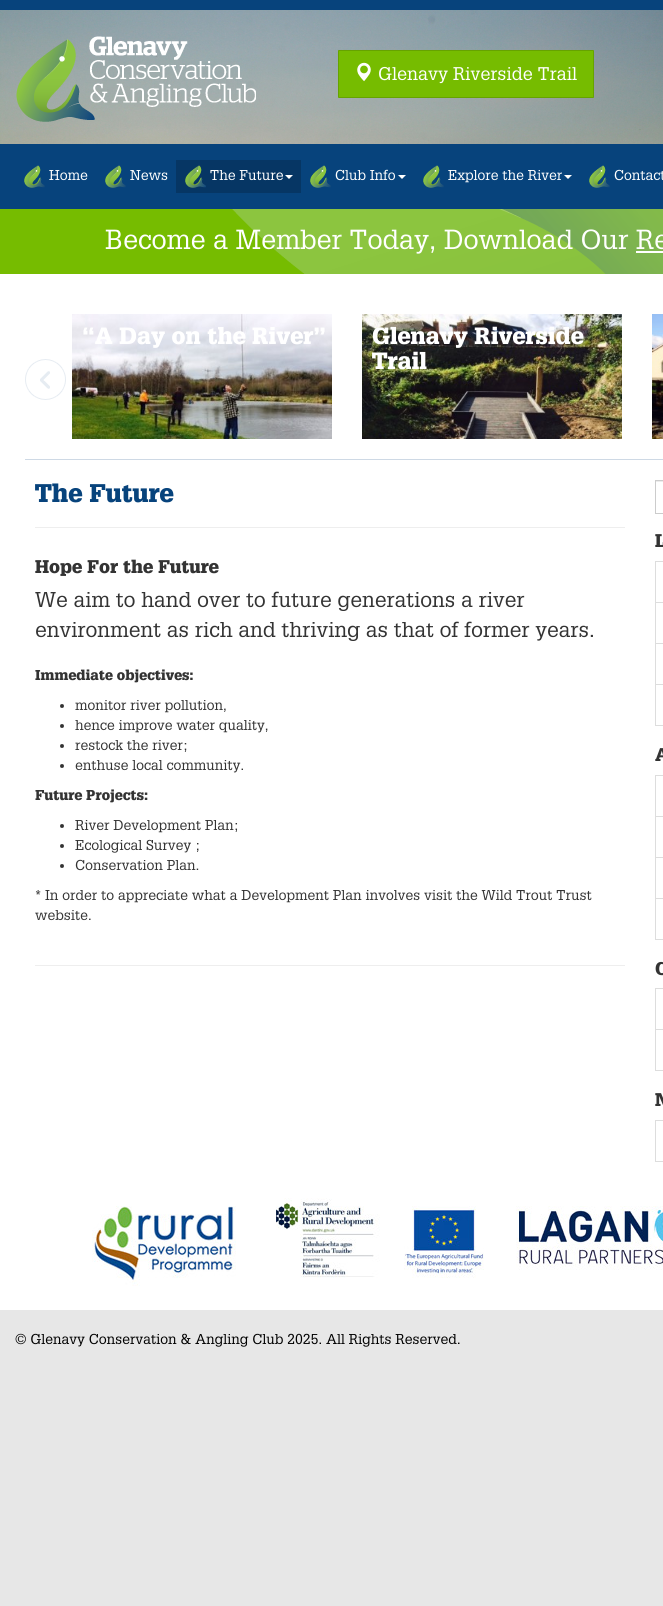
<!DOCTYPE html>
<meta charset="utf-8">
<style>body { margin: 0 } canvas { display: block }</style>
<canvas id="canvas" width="663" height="1606"></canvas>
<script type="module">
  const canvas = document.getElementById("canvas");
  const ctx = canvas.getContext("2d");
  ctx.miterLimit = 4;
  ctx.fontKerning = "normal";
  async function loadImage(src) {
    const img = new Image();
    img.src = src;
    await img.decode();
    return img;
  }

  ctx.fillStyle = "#e7e7e7";
  ctx.fillRect(0, 0, 663, 1606);
  ctx.fillStyle = "#07437c";
  ctx.fillRect(0, 0, 663, 10);
  ctx.drawImage(await loadImage("img1.png"), 0, 10, 663, 134);
  ctx.drawImage(await loadImage("img2.png"), 16, 36, 240, 86);
  ctx.fillStyle = "#76bc00";
  ctx.beginPath();
  ctx.rect(338.5, 50.5, 255, 47);
  ctx.fill();
  ctx.strokeStyle = "#66a300";
  ctx.stroke();
  ctx.drawImage(await loadImage("img3.png"), 357, 62, 14, 20);
  ctx.drawImage(await loadImage("img4.png"), 379, 66, 198, 18);
  ctx.fillStyle = "#07437c";
  ctx.fillRect(0, 144, 663, 65);
  ctx.drawImage(await loadImage("img5.png"), 24, 165, 21, 23);
  ctx.drawImage(await loadImage("img6.png"), 49, 170, 39, 11);
  ctx.drawImage(await loadImage("img5.png"), 105, 165, 21, 23);
  ctx.drawImage(await loadImage("img7.png"), 130, 170, 38, 11);
  ctx.fillStyle = "#063664";
  ctx.fillRect(176, 160, 125, 33);
  ctx.drawImage(await loadImage("img8.png"), 185, 165, 21, 23);
  ctx.drawImage(await loadImage("img9.png"), 210, 170, 73, 11);
  ctx.fillStyle = "#ffffff";
  ctx.beginPath();
  ctx.moveTo(285, 175);
  ctx.lineTo(293, 175);
  ctx.lineTo(289, 179);
  ctx.closePath();
  ctx.fill();
  ctx.drawImage(await loadImage("img5.png"), 310, 165, 21, 23);
  ctx.drawImage(await loadImage("img10.png"), 335, 169, 60, 12);
  ctx.beginPath();
  ctx.moveTo(398, 175);
  ctx.lineTo(406, 175);
  ctx.lineTo(402, 179);
  ctx.closePath();
  ctx.fill();
  ctx.drawImage(await loadImage("img5.png"), 423, 165, 21, 23);
  ctx.drawImage(await loadImage("img11.png"), 448, 170, 114, 13);
  ctx.beginPath();
  ctx.moveTo(564, 175);
  ctx.lineTo(572, 175);
  ctx.lineTo(568, 179);
  ctx.closePath();
  ctx.fill();
  ctx.drawImage(await loadImage("img5.png"), 589, 165, 21, 23);
  ctx.drawImage(await loadImage("img12.png"), 614, 169, 49, 12);
  ctx.fillStyle = "#76bc00";
  ctx.fillRect(0, 209, 305, 65);
  ctx.drawImage(await loadImage("img13.png"), 232, 209, 431, 65);
  ctx.drawImage(await loadImage("img14.png"), 105, 229, 524, 25);
  ctx.drawImage(await loadImage("img15.png"), 636, 229, 27, 21);
  ctx.fillStyle = "#ffffff";
  ctx.fillRect(636, 251, 27, 2);
  ctx.fillRect(0, 274, 663, 1036);
  ctx.fillStyle = "#ced9e5";
  ctx.fillRect(25, 459, 638, 1);
  ctx.drawImage(await loadImage("img16.png"), 25, 359, 41, 41);
  ctx.drawImage(await loadImage("img17.png"), 72, 314, 260, 125);
  ctx.drawImage(await loadImage("img18.png"), 83, 327, 242, 21);
  ctx.drawImage(await loadImage("img19.png"), 362, 314, 260, 125);
  ctx.drawImage(await loadImage("img20.png"), 372, 326, 212, 22);
  ctx.drawImage(await loadImage("img21.png"), 372, 351, 55, 19);
  ctx.drawImage(await loadImage("img22.png"), 652, 314, 11, 125);
  ctx.drawImage(await loadImage("img23.png"), 662, 334, 1, 3);
  ctx.fillStyle = "#eeeeee";
  ctx.fillRect(35, 965, 590, 1);
  ctx.fillRect(35, 527, 590, 1);
  ctx.drawImage(await loadImage("img24.png"), 35, 483, 139, 20);
  ctx.drawImage(await loadImage("img25.png"), 35, 559, 184, 17);
  ctx.drawImage(await loadImage("img26.png"), 35, 591, 490, 20);
  ctx.drawImage(await loadImage("img27.png"), 36, 621, 557, 20);
  ctx.drawImage(await loadImage("img28.png"), 35, 669, 158, 14);
  ctx.fillStyle = "#333333";
  ctx.beginPath();
  ctx.arc(62, 706, 2, 0, Math.PI * 2);
  ctx.fill();
  ctx.drawImage(await loadImage("img29.png"), 75, 700, 151, 13);
  ctx.beginPath();
  ctx.arc(62, 726, 2, 0, Math.PI * 2);
  ctx.fill();
  ctx.drawImage(await loadImage("img30.png"), 75, 720, 193, 13);
  ctx.beginPath();
  ctx.arc(62, 746, 2, 0, Math.PI * 2);
  ctx.fill();
  ctx.drawImage(await loadImage("img31.png"), 75, 740, 112, 12);
  ctx.beginPath();
  ctx.arc(62, 766, 2, 0, Math.PI * 2);
  ctx.fill();
  ctx.drawImage(await loadImage("img32.png"), 75, 760, 168, 13);
  ctx.drawImage(await loadImage("img33.png"), 35, 789, 113, 14);
  ctx.beginPath();
  ctx.arc(62, 826, 2, 0, Math.PI * 2);
  ctx.fill();
  ctx.drawImage(await loadImage("img34.png"), 75, 820, 163, 13);
  ctx.beginPath();
  ctx.arc(62, 846, 2, 0, Math.PI * 2);
  ctx.fill();
  ctx.drawImage(await loadImage("img35.png"), 75, 839, 124, 14);
  ctx.beginPath();
  ctx.arc(62, 866, 2, 0, Math.PI * 2);
  ctx.fill();
  ctx.drawImage(await loadImage("img36.png"), 75, 859, 124, 12);
  ctx.drawImage(await loadImage("img37.png"), 35, 890, 557, 13);
  ctx.drawImage(await loadImage("img38.png"), 35, 910, 56, 11);
  ctx.fillStyle = "#ececec";
  ctx.fillRect(656, 481, 7, 1);
  ctx.strokeStyle = "#cccccc";
  ctx.strokeRect(655.5, 480.5, 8, 33);
  ctx.drawImage(await loadImage("img39.png"), 655, 534, 8, 13);
  ctx.strokeStyle = "#dddddd";
  ctx.strokeRect(655.5, 561.5, 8, 41);
  ctx.fillStyle = "#ffffff";
  ctx.fillRect(656, 602, 7, 1);
  ctx.strokeRect(655.5, 602.5, 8, 41);
  ctx.fillRect(656, 643, 7, 1);
  ctx.strokeRect(655.5, 643.5, 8, 41);
  ctx.fillRect(656, 684, 7, 1);
  ctx.strokeRect(655.5, 684.5, 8, 41);
  ctx.drawImage(await loadImage("img40.png"), 655, 748, 8, 13);
  ctx.strokeRect(655.5, 775.5, 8, 41);
  ctx.fillRect(656, 816, 7, 1);
  ctx.strokeRect(655.5, 816.5, 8, 41);
  ctx.fillRect(656, 857, 7, 1);
  ctx.strokeRect(655.5, 857.5, 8, 41);
  ctx.fillRect(656, 898, 7, 1);
  ctx.strokeRect(655.5, 898.5, 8, 41);
  ctx.drawImage(await loadImage("img41.png"), 655, 961, 8, 15);
  ctx.strokeRect(655.5, 988.5, 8, 41);
  ctx.fillRect(656, 1029, 7, 1);
  ctx.strokeRect(655.5, 1029.5, 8, 41);
  ctx.drawImage(await loadImage("img42.png"), 655, 1093, 8, 13);
  ctx.strokeRect(655.5, 1120.5, 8, 41);
  ctx.drawImage(await loadImage("img43.png"), 92, 1198, 571, 88);
  ctx.drawImage(await loadImage("img44.png"), 15, 1333, 445, 14);
</script>
